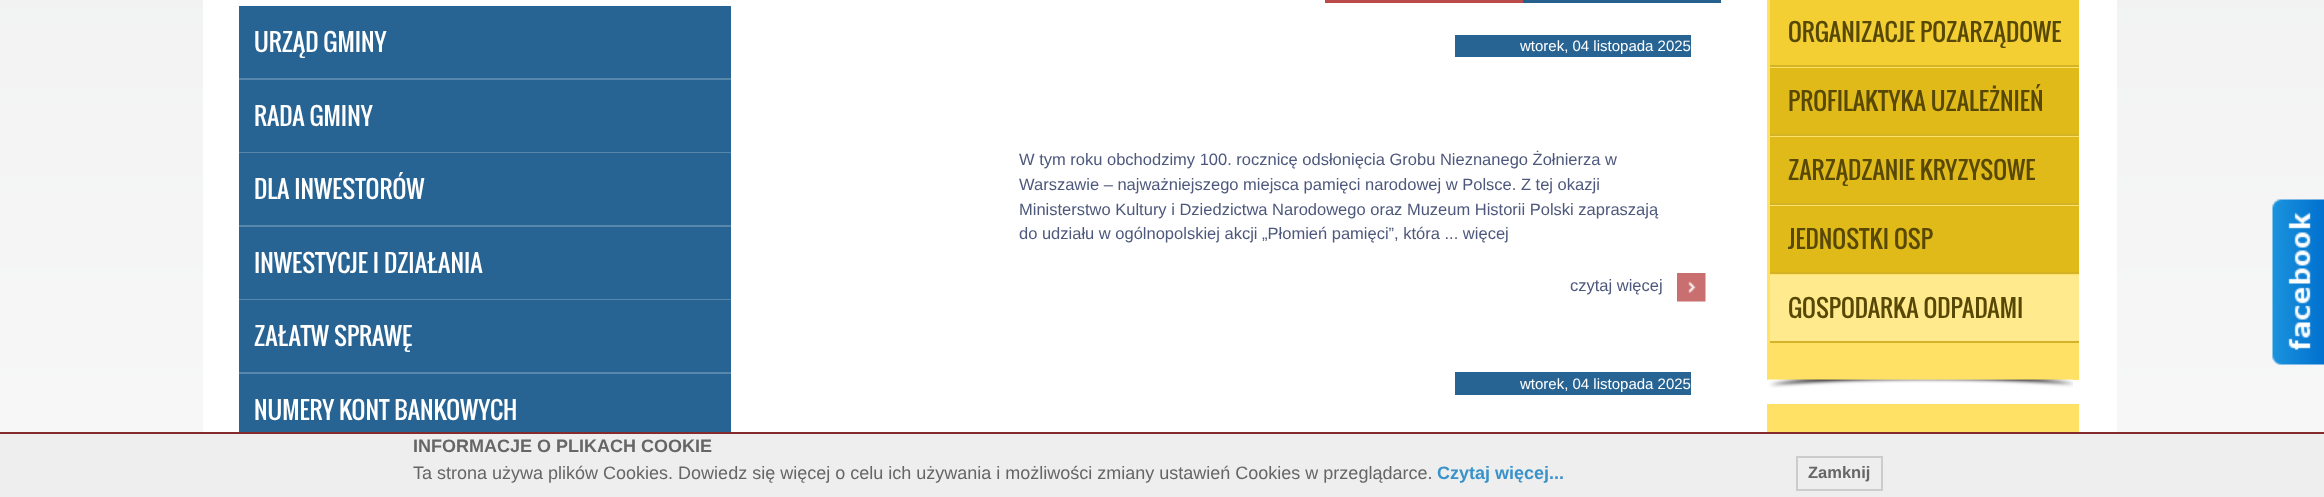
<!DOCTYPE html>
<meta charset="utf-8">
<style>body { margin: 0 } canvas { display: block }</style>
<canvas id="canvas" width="2324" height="497"></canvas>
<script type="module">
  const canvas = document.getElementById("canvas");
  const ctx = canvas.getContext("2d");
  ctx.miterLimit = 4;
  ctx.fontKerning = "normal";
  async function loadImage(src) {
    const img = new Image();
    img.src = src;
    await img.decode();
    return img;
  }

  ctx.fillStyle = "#ffffff";
  ctx.fillRect(0, 0, 2324, 497);
  ctx.drawImage(await loadImage("img1.png"), 0, 0, 2324, 432);
  ctx.fillRect(203, 0, 1914, 432);
  ctx.fillStyle = "#276393";
  ctx.fillRect(239, 6, 492, 72);
  ctx.fillStyle = "#5887ac";
  ctx.fillRect(239, 78, 492, 2);
  ctx.font = "24px Oswald";
  ctx.fillStyle = "#ffffff";
  ctx.fillText("URZĄD GMINY", 254, 52);
  ctx.fillStyle = "#276393";
  ctx.fillRect(239, 80, 492, 72);
  ctx.fillStyle = "#5887ac";
  ctx.fillRect(239, 152, 492, 1);
  ctx.fillStyle = "#ffffff";
  ctx.fillText("RADA GMINY", 254, 126);
  ctx.fillStyle = "#276393";
  ctx.fillRect(239, 153, 492, 72);
  ctx.fillStyle = "#5887ac";
  ctx.fillRect(239, 225, 492, 2);
  ctx.fillStyle = "#ffffff";
  ctx.fillText("DLA INWESTORÓW", 254, 199);
  ctx.fillStyle = "#276393";
  ctx.fillRect(239, 227, 492, 72);
  ctx.fillStyle = "#5887ac";
  ctx.fillRect(239, 299, 492, 1);
  ctx.fillStyle = "#ffffff";
  ctx.fillText("INWESTYCJE I DZIAŁANIA", 254, 273);
  ctx.fillStyle = "#276393";
  ctx.fillRect(239, 300, 492, 72);
  ctx.fillStyle = "#5887ac";
  ctx.fillRect(239, 372, 492, 2);
  ctx.fillStyle = "#ffffff";
  ctx.fillText("ZAŁATW SPRAWĘ", 254, 346);
  ctx.fillStyle = "#276393";
  ctx.fillRect(239, 374, 492, 58);
  ctx.fillStyle = "#ffffff";
  ctx.fillText("NUMERY KONT BANKOWYCH", 254, 420);
  ctx.fillStyle = "#b94b4b";
  ctx.fillRect(1325, 0, 198, 3);
  ctx.fillStyle = "#26608f";
  ctx.fillRect(1523, 0, 198, 3);
  ctx.fillStyle = "#276493";
  ctx.fillRect(1455, 35, 236, 22);
  ctx.font = "15px Liberation Sans";
  ctx.fillStyle = "#ffffff";
  ctx.fillText("wtorek, 04 listopada 2025", 1520, 51);
  ctx.font = "16.5px Liberation Sans";
  ctx.fillStyle = "#4d587c";
  ctx.fillText("W tym roku obchodzimy 100. rocznicę odsłonięcia Grobu Nieznanego Żołnierza w", 1019, 165);
  ctx.fillText("Warszawie – najważniejszego miejsca pamięci narodowej w Polsce. Z tej okazji", 1019, 190);
  ctx.fillText("Ministerstwo Kultury i Dziedzictwa Narodowego oraz Muzeum Historii Polski zapraszają", 1019, 215);
  ctx.fillText("do udziału w ogólnopolskiej akcji „Płomień pamięci”, która ... więcej", 1019, 239);
  ctx.fillText("czytaj więcej", 1570, 291);
  ctx.drawImage(await loadImage("img2.png"), 1677, 273, 29, 29);
  ctx.fillStyle = "#276493";
  ctx.fillRect(1455, 372, 236, 23);
  ctx.font = "15px Liberation Sans";
  ctx.fillStyle = "#ffffff";
  ctx.fillText("wtorek, 04 listopada 2025", 1520, 389);
  ctx.fillStyle = "#ffe265";
  ctx.fillRect(1767, 0, 312, 380);
  ctx.fillStyle = "#f3cf33";
  ctx.fillRect(1770, 0, 309, 65);
  ctx.fillStyle = "#d5b326";
  ctx.fillRect(1770, 65, 309, 2);
  ctx.font = "24px Oswald";
  ctx.fillStyle = "#574805";
  ctx.fillText("ORGANIZACJE POZARZĄDOWE", 1788, 42);
  ctx.fillStyle = "#e0ba19";
  ctx.fillRect(1770, 68, 309, 66);
  ctx.fillStyle = "#d5b326";
  ctx.fillRect(1770, 134, 309, 2);
  ctx.fillStyle = "#574805";
  ctx.fillText("PROFILAKTYKA UZALEŻNIEŃ", 1788, 111);
  ctx.fillStyle = "#e0ba19";
  ctx.fillRect(1770, 137, 309, 66);
  ctx.fillStyle = "#d5b326";
  ctx.fillRect(1770, 203, 309, 2);
  ctx.fillStyle = "#574805";
  ctx.fillText("ZARZĄDZANIE KRYZYSOWE", 1788, 180);
  ctx.fillStyle = "#e0ba19";
  ctx.fillRect(1770, 206, 309, 66);
  ctx.fillStyle = "#d5b326";
  ctx.fillRect(1770, 272, 309, 2);
  ctx.fillStyle = "#574805";
  ctx.fillText("JEDNOSTKI OSP", 1788, 249);
  ctx.fillStyle = "#ffea8d";
  ctx.fillRect(1770, 275, 309, 66);
  ctx.fillStyle = "#d5b326";
  ctx.fillRect(1770, 341, 309, 2);
  ctx.fillStyle = "#574805";
  ctx.fillText("GOSPODARKA ODPADAMI", 1788, 318);
  ctx.drawImage(await loadImage("img3.png"), 1768, 379, 305, 9);
  ctx.fillStyle = "#ffe265";
  ctx.fillRect(1767, 404, 312, 28);
  ctx.drawImage(await loadImage("img4.png"), 2272, 199, 52, 166);
  ctx.fillStyle = "#eeeeee";
  ctx.fillRect(0, 434, 2324, 63);
  ctx.fillStyle = "#852b2b";
  ctx.fillRect(0, 432, 2324, 2);
  ctx.font = "bold 18px Liberation Sans";
  ctx.fillStyle = "#666666";
  ctx.fillText("INFORMACJE O PLIKACH COOKIE", 413, 452);
  ctx.font = "18px Liberation Sans";
  ctx.fillText("Ta strona używa plików Cookies. Dowiedz się więcej o celu ich używania i możliwości zmiany ustawień Cookies w przeglądarce.", 413, 479);
  ctx.font = "bold 18px Liberation Sans";
  ctx.fillStyle = "#3992ca";
  ctx.fillText("Czytaj więcej...", 1437, 479);
  ctx.strokeStyle = "#cccccc";
  ctx.lineWidth = 2;
  ctx.strokeRect(1797, 457, 85, 33);
  ctx.font = "bold 16.5px Liberation Sans";
  ctx.fillStyle = "#666666";
  ctx.fillText("Zamknij", 1808, 478);
</script>
